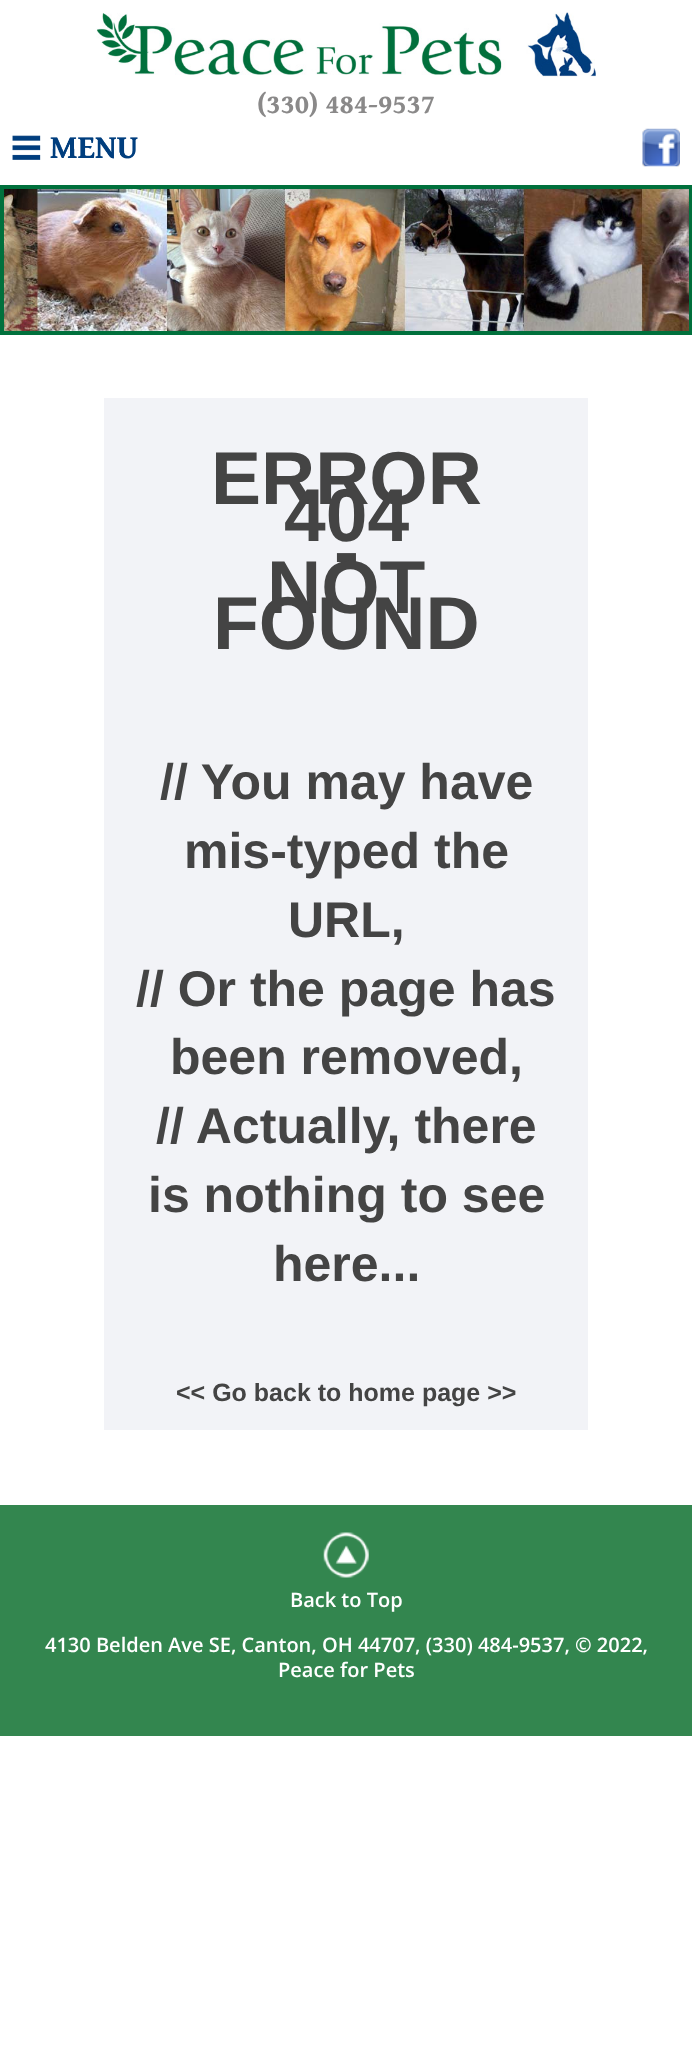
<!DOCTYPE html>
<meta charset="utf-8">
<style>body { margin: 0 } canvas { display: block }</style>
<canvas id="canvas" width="692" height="2056"></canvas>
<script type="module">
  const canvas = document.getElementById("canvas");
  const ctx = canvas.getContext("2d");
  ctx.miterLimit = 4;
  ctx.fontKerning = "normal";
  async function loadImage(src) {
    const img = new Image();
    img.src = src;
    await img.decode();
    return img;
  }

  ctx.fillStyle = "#ffffff";
  ctx.fillRect(0, 0, 692, 2056);
  ctx.drawImage(await loadImage("img1.png"), 96, 12, 500, 65);
  ctx.font = "bold 27.5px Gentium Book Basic";
  ctx.fillStyle = "#8a8989";
  ctx.fillText("(330) 484-9537", 257, 113);
  ctx.drawImage(await loadImage("img2.png"), 12, 135, 126, 25);
  ctx.drawImage(await loadImage("img3.png"), 642, 128, 38, 39);
  ctx.drawImage(await loadImage("img4.png"), 4, 189, 685, 142);
  ctx.strokeStyle = "#00703c";
  ctx.lineWidth = 4;
  ctx.strokeRect(2, 187, 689, 146);
  ctx.fillStyle = "#f2f3f7";
  ctx.fillRect(104, 398, 484, 1032);
  ctx.font = "bold 75px Liberation Sans";
  ctx.fillStyle = "#444444";
  ctx.fillText("ERROR", 211, 504);
  ctx.fillText("404", 284, 541);
  ctx.fillText("-", 334, 577);
  ctx.fillText("NOT", 267, 613);
  ctx.fillText("FOUND", 213, 649);
  ctx.font = "bold 50px Liberation Sans";
  ctx.fillText("// You may have", 160, 799);
  ctx.fillText("mis-typed the", 184, 868);
  ctx.fillText("URL,", 288, 937);
  ctx.fillText("// Or the page has", 136, 1006);
  ctx.fillText("been removed,", 170, 1074);
  ctx.fillText("// Actually, there", 156, 1143);
  ctx.fillText("is nothing to see", 148, 1212);
  ctx.fillText("here...", 273, 1281);
  ctx.font = "bold 25px Liberation Sans";
  ctx.fillText("<< Go back to home page >>", 176, 1401);
  ctx.fillStyle = "#33864f";
  ctx.fillRect(0, 1505, 692, 231);
  ctx.drawImage(await loadImage("img5.png"), 323, 1532, 46, 46);
  ctx.font = "600 20px Open Sans";
  ctx.fillStyle = "#ffffff";
  ctx.fillText("Back to Top", 290, 1607);
  ctx.fillText("4130 Belden Ave SE, Canton, OH 44707, (330) 484-9537, © 2022,", 45, 1652);
  ctx.fillText("Peace for Pets", 278, 1677);
</script>
